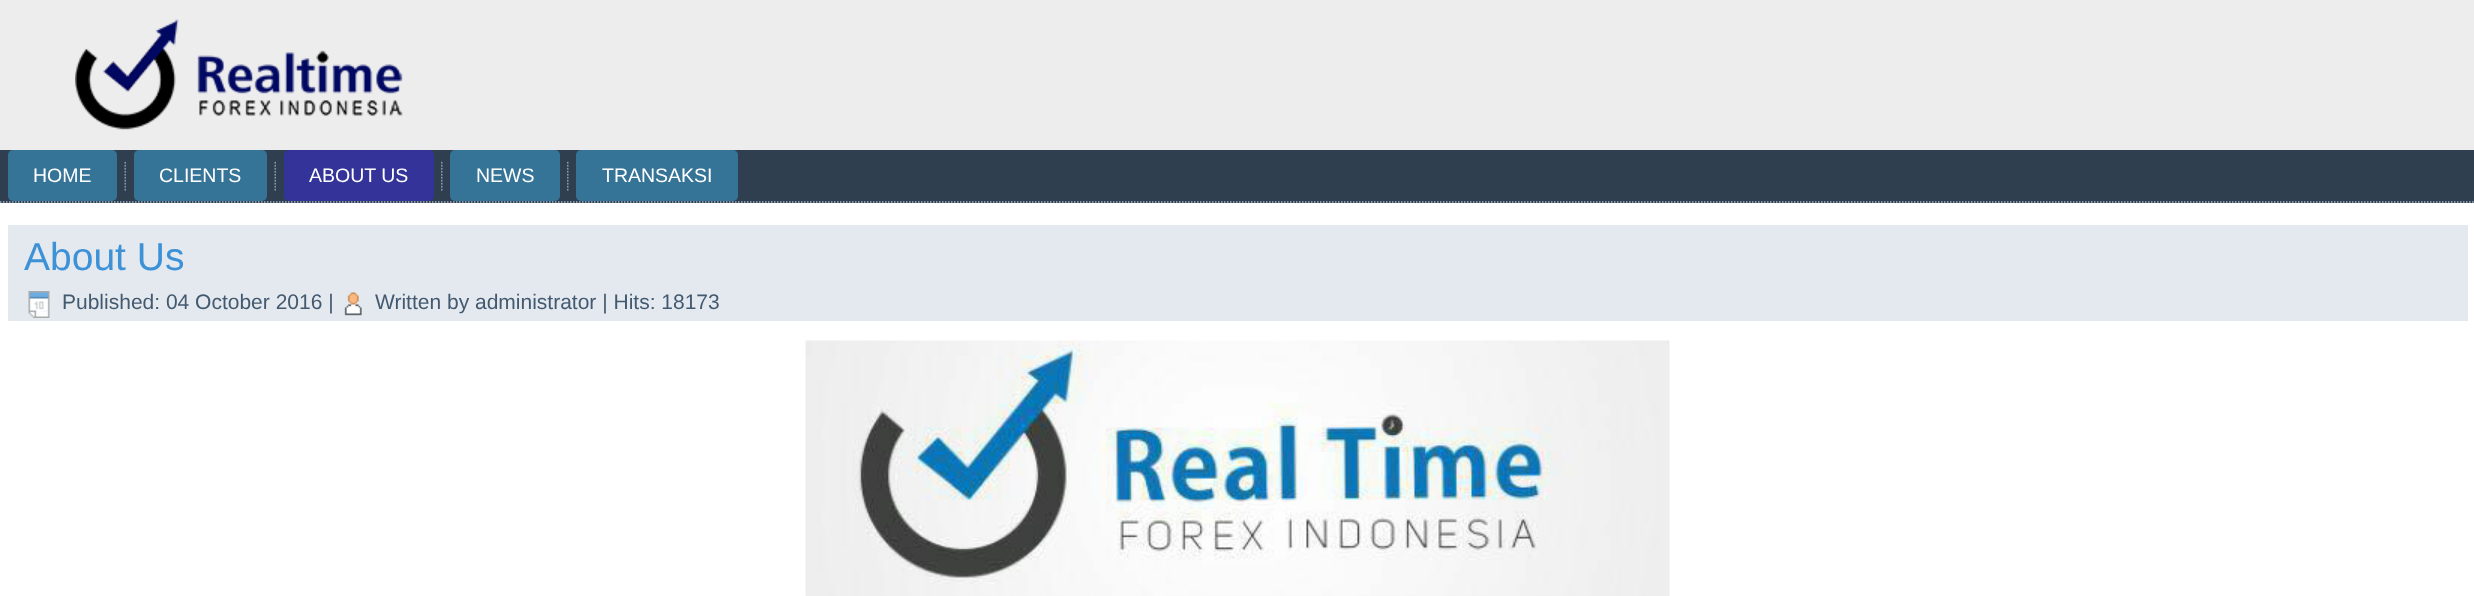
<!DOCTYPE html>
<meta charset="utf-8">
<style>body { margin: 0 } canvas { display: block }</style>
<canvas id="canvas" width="2474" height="596"></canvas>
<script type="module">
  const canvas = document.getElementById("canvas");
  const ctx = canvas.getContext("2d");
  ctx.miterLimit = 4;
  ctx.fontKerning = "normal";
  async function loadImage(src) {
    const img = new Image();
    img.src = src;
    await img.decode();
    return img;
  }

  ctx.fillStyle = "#ffffff";
  ctx.fillRect(0, 0, 2474, 596);
  ctx.fillStyle = "#ededed";
  ctx.fillRect(0, 0, 2474, 150);
  ctx.drawImage(await loadImage("img1.png"), 75, 19, 328, 111);
  ctx.fillStyle = "#303f50";
  ctx.fillRect(0, 150, 2474, 53);
  ctx.beginPath();
  ctx.moveTo(0, 202);
  ctx.lineTo(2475, 202);
  ctx.strokeStyle = "#a3b4c8";
  ctx.lineWidth = 1.5;
  ctx.setLineDash([1.5, 1.5]);
  ctx.stroke();
  ctx.fillStyle = "#357397";
  ctx.beginPath();
  ctx.roundRect(8, 150, 109, 51, 5);
  ctx.fill();
  ctx.font = "19.5px Liberation Sans";
  ctx.fillStyle = "#ffffff";
  ctx.fillText("HOME", 33, 182);
  ctx.drawImage(await loadImage("img2.png"), 124, 161, 2, 30);
  ctx.fillStyle = "#357397";
  ctx.beginPath();
  ctx.roundRect(134, 150, 133, 51, 5);
  ctx.fill();
  ctx.fillStyle = "#ffffff";
  ctx.fillText("CLIENTS", 159, 182);
  ctx.drawImage(await loadImage("img2.png"), 274, 161, 2, 30);
  ctx.fillStyle = "#333399";
  ctx.beginPath();
  ctx.roundRect(284, 150, 150, 51, 5);
  ctx.fill();
  ctx.fillStyle = "#ffffff";
  ctx.fillText("ABOUT US", 309, 182);
  ctx.drawImage(await loadImage("img3.png"), 441, 161, 2, 30);
  ctx.fillStyle = "#357397";
  ctx.beginPath();
  ctx.roundRect(450, 150, 110, 51, 5);
  ctx.fill();
  ctx.fillStyle = "#ffffff";
  ctx.fillText("NEWS", 476, 182);
  ctx.drawImage(await loadImage("img3.png"), 567, 161, 2, 30);
  ctx.fillStyle = "#357397";
  ctx.beginPath();
  ctx.roundRect(576, 150, 162, 51, 5);
  ctx.fill();
  ctx.fillStyle = "#ffffff";
  ctx.fillText("TRANSAKSI", 602, 182);
  ctx.fillStyle = "#e4e9ef";
  ctx.fillRect(8, 225, 2460, 96);
  ctx.font = "39px Liberation Sans";
  ctx.fillStyle = "#3d91d6";
  ctx.fillText("About Us", 24, 270);
  ctx.drawImage(await loadImage("img4.png"), 28, 291, 22, 27);
  ctx.font = "21px Liberation Sans";
  ctx.fillStyle = "#435970";
  ctx.fillText("Published: 04 October 2016 |", 62, 309);
  ctx.drawImage(await loadImage("img5.png"), 344, 292, 18, 24);
  ctx.fillText("Written by administrator | Hits: 18173", 375, 309);
  ctx.drawImage(await loadImage("img6.png"), 805, 340, 865, 256);
</script>
